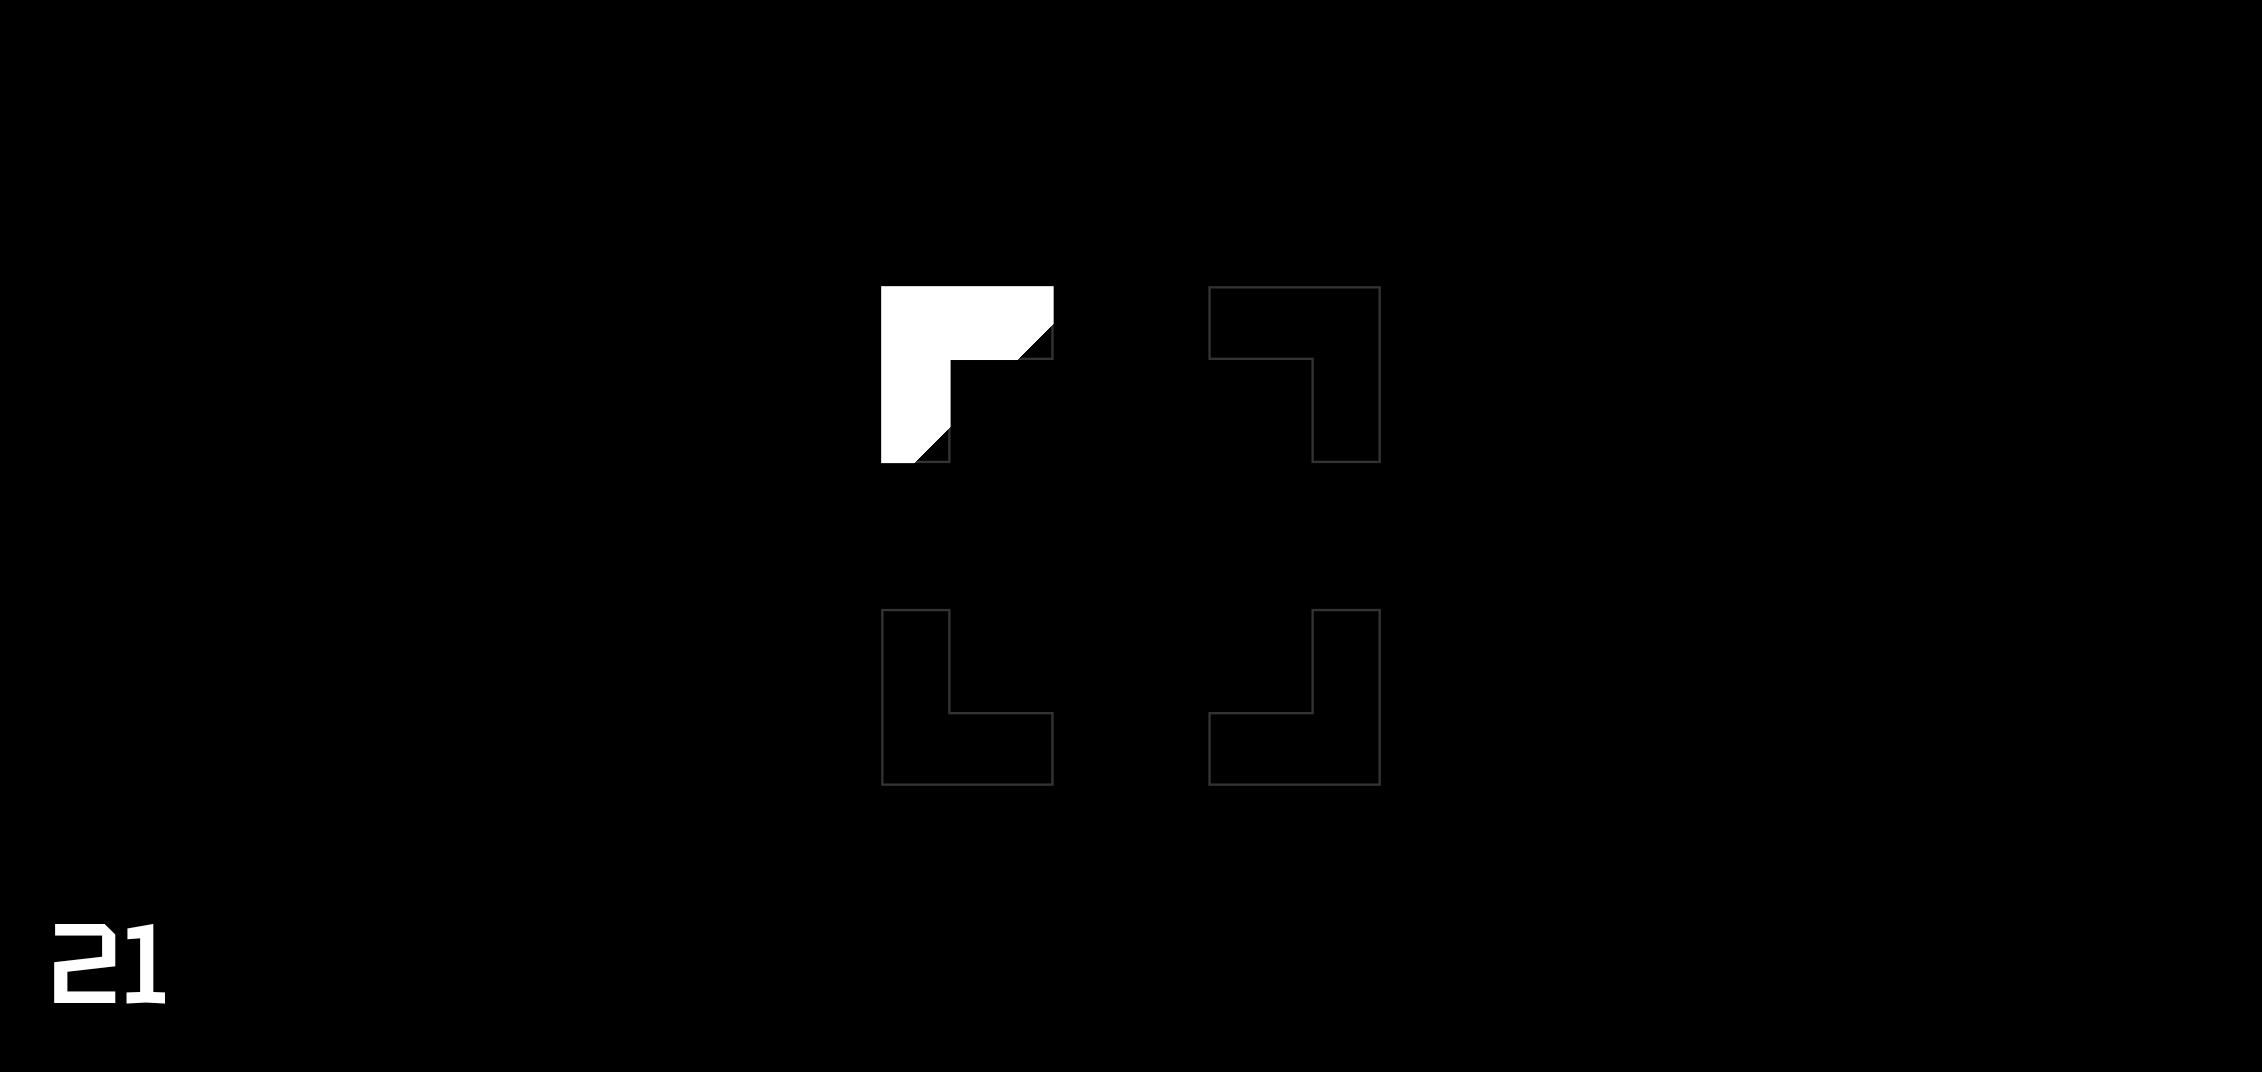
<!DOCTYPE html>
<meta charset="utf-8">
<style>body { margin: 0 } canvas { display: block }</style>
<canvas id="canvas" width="2262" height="1072"></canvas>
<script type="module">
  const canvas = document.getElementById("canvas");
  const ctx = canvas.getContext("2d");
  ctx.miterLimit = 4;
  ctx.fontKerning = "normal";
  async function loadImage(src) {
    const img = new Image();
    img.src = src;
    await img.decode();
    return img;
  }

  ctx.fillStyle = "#000000";
  ctx.fillRect(0, 0, 2262, 1072);
  ctx.drawImage(await loadImage("img1.png"), 881, 286, 500, 500);
  ctx.font = "500 113px Tektur";
  ctx.fillStyle = "#ffffff";
  ctx.fillText("21", 48, 1003);
</script>
